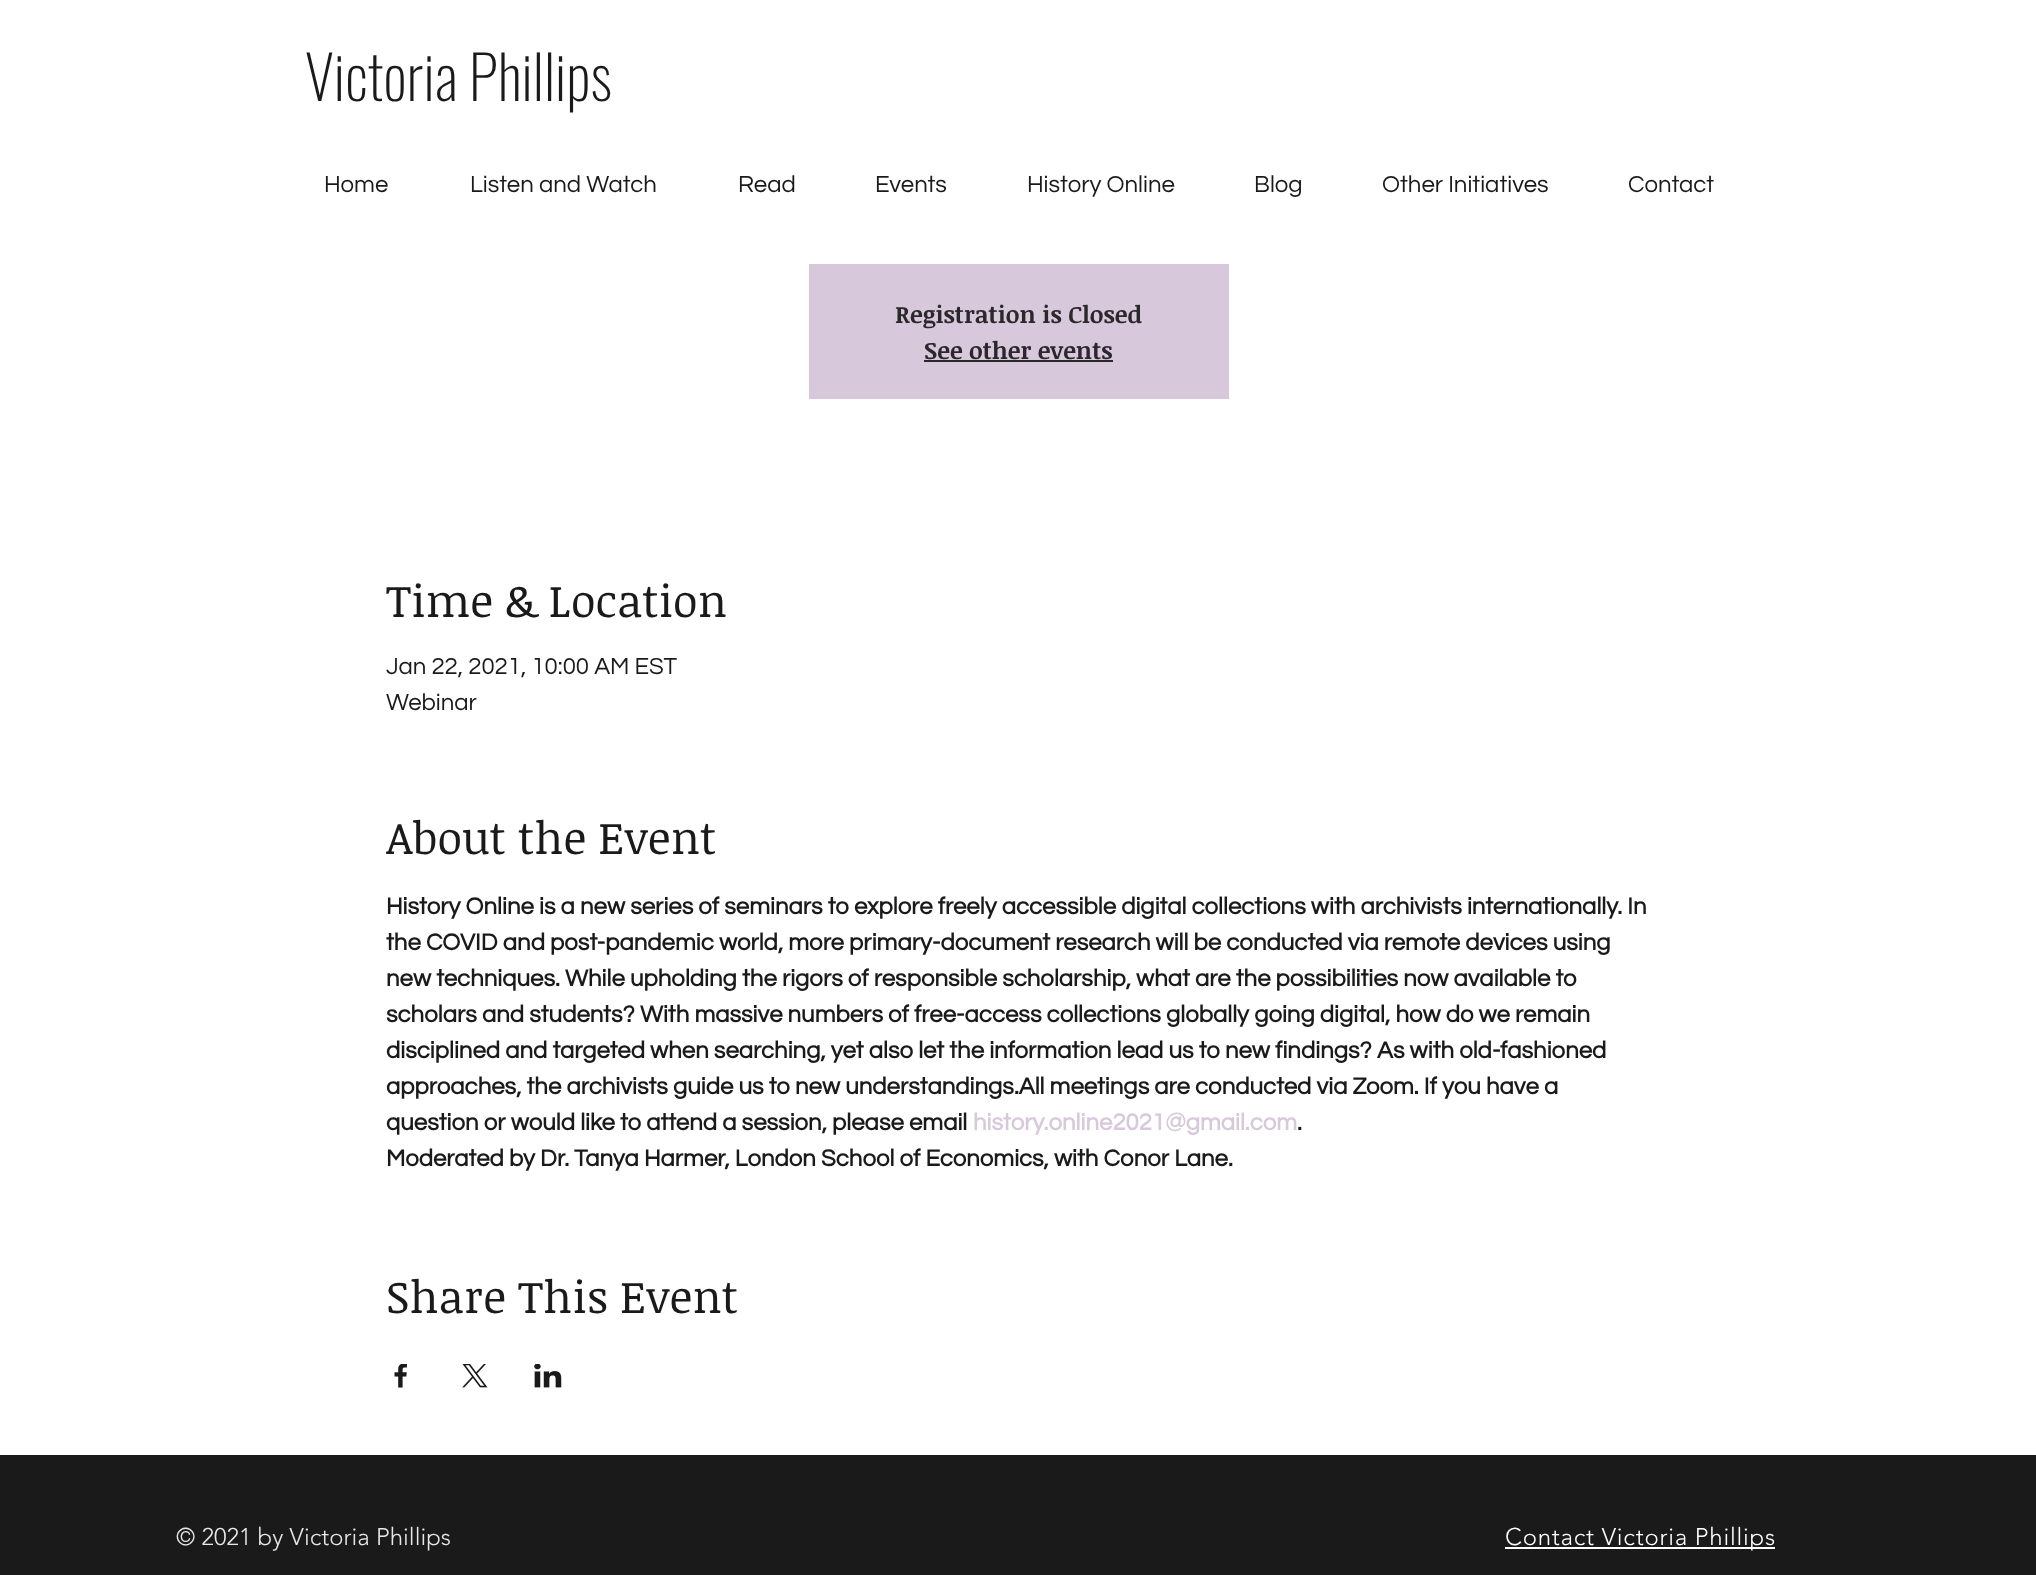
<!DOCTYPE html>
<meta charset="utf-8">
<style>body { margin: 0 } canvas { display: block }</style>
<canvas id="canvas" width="2036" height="1575"></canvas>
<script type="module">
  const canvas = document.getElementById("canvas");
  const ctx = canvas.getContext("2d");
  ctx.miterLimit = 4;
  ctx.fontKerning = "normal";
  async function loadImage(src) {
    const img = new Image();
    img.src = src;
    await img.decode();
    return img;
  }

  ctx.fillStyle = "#ffffff";
  ctx.fillRect(0, 0, 2036, 1575);
  ctx.font = "200 60px Oswald";
  ctx.fillStyle = "#1a1a1a";
  ctx.fillText("Victoria Phillips", 305, 101);
  ctx.font = "24px Questrial";
  ctx.fillText("Home", 324, 192);
  ctx.fillText("Listen and Watch", 470, 192);
  ctx.fillText("Read", 738, 192);
  ctx.fillText("Events", 875, 192);
  ctx.fillText("History Online", 1027, 192);
  ctx.fillText("Blog", 1254, 192);
  ctx.fillText("Other Initiatives", 1382, 192);
  ctx.fillText("Contact", 1628, 192);
  ctx.fillStyle = "#d8c8db";
  ctx.fillRect(809, 264, 420, 135);
  ctx.font = "bold 24px Noticia Text";
  ctx.fillStyle = "#2b282c";
  ctx.fillText("Registration is Closed", 895, 323);
  ctx.fillText("See other events", 924, 359);
  ctx.fillRect(924, 360, 189, 2);
  ctx.font = "45px Noticia Text";
  ctx.fillStyle = "#1a1a1a";
  ctx.fillText("Time & Location", 386, 617);
  ctx.font = "24px Questrial";
  ctx.fillText("Jan 22, 2021, 10:00 AM EST", 386, 674);
  ctx.fillText("Webinar", 386, 710);
  ctx.font = "45px Noticia Text";
  ctx.fillText("About the Event", 386, 854);
  ctx.font = "bold 24px Questrial";
  ctx.fillText("History Online is a new series of seminars to explore freely accessible digital collections with archivists internationally. In", 386, 914);
  ctx.fillText("the COVID and post-pandemic world, more primary-document research will be conducted via remote devices using", 386, 950);
  ctx.fillText("new techniques. While upholding the rigors of responsible scholarship, what are the possibilities now available to", 386, 986);
  ctx.fillText("scholars and students? With massive numbers of free-access collections globally going digital, how do we remain", 386, 1022);
  ctx.fillText("disciplined and targeted when searching, yet also let the information lead us to new findings? As with old-fashioned", 386, 1058);
  ctx.fillText("approaches, the archivists guide us to new understandings.All meetings are conducted via Zoom. If you have a", 386, 1094);
  ctx.fillText("question or would like to attend a session, please email", 386, 1130);
  ctx.fillStyle = "#d8c8db";
  ctx.fillText("history.online2021@gmail.com", 973, 1130);
  ctx.fillStyle = "#1a1a1a";
  ctx.fillText(".", 1297, 1130);
  ctx.fillText("Moderated by Dr. Tanya Harmer, London School of Economics, with Conor Lane.", 386, 1166);
  ctx.font = "45px Noticia Text";
  ctx.fillText("Share This Event", 386, 1313);
  ctx.drawImage(await loadImage("img1.png"), 394, 1364, 13, 24);
  ctx.drawImage(await loadImage("img2.png"), 462, 1364, 26, 24);
  ctx.drawImage(await loadImage("img3.png"), 534, 1364, 28, 24);
  ctx.fillRect(0, 1455, 2036, 120);
  ctx.font = "300 24px 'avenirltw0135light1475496'";
  ctx.fillStyle = "#e6e9e6";
  ctx.fillText("© 2021 by Victoria Phillips", 176, 1545);
  ctx.fillStyle = "#ffffff";
  ctx.fillRect(1505, 1547, 270, 2);
  ctx.letterSpacing = "0.75px";
  ctx.fillText("Contact Victoria Phillips", 1505, 1545);
</script>
